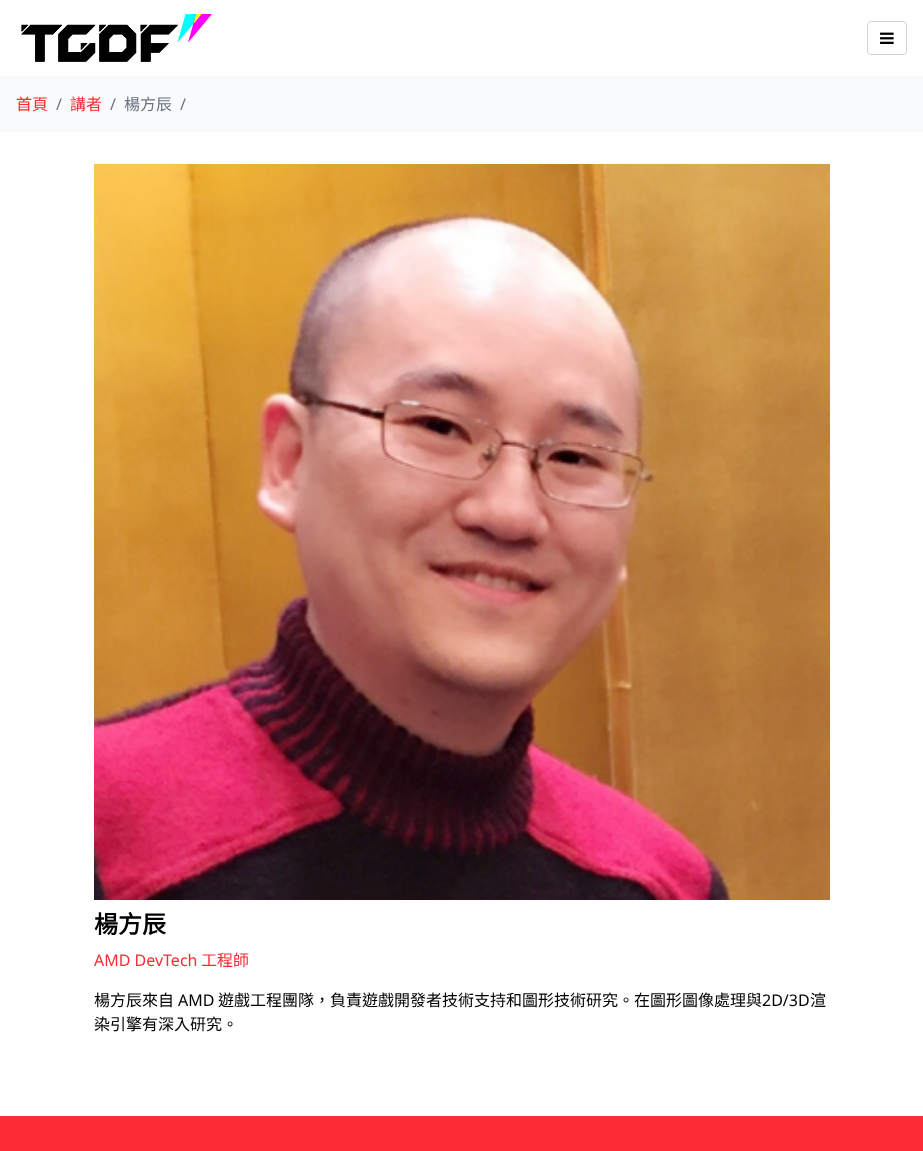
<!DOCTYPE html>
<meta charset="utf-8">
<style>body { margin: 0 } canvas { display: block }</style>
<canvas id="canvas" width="923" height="1151"></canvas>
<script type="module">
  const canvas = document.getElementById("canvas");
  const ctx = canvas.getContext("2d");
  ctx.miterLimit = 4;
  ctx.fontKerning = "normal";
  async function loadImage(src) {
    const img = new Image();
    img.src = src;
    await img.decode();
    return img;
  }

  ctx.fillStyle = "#ffffff";
  ctx.fillRect(0, 0, 923, 1151);
  ctx.drawImage(await loadImage("img1.png"), 21, 14, 191, 48);
  ctx.beginPath();
  ctx.roundRect(867.5, 21.5, 39, 33, 3.5);
  ctx.strokeStyle = "#d1d5dc";
  ctx.stroke();
  ctx.drawImage(await loadImage("img2.png"), 880, 32, 14, 12);
  ctx.fillStyle = "#f9fafb";
  ctx.fillRect(0, 76, 923, 56);
  ctx.font = "16px Noto Sans CJK TC";
  ctx.fillStyle = "#fb2c36";
  ctx.fillText("首頁", 16, 110);
  ctx.font = "16px Noto Sans";
  ctx.fillStyle = "#6a7282";
  ctx.fillText("/", 56, 110);
  ctx.font = "16px Noto Sans CJK TC";
  ctx.fillStyle = "#fb2c36";
  ctx.fillText("講者", 70, 110);
  ctx.font = "16px Noto Sans";
  ctx.fillStyle = "#6a7282";
  ctx.fillText("/", 110, 110);
  ctx.font = "16px Noto Sans CJK TC";
  ctx.fillText("楊方辰", 124, 110);
  ctx.font = "16px Noto Sans";
  ctx.fillText("/", 180, 110);
  ctx.drawImage(await loadImage("img3.png"), 94, 164, 736, 736);
  ctx.font = "bold 24px Noto Sans CJK TC";
  ctx.fillStyle = "#000000";
  ctx.fillText("楊方辰", 94, 933);
  ctx.font = "16px Noto Sans";
  ctx.fillStyle = "#fb2c36";
  ctx.fillText("AMD DevTech", 94, 966);
  ctx.font = "16px Noto Sans CJK TC";
  ctx.fillText("工程師", 201, 966);
  ctx.fillStyle = "#000000";
  ctx.fillText("楊方辰來自", 94, 1006);
  ctx.font = "16px Noto Sans";
  ctx.fillText("AMD", 178, 1006);
  ctx.font = "16px Noto Sans CJK TC";
  ctx.fillText("遊戲工程團隊，負責遊戲開發者技術支持和圖形技術研究。在圖形圖像處理與", 218, 1006);
  ctx.font = "16px Noto Sans";
  ctx.fillText("2D/3D", 762, 1006);
  ctx.font = "16px Noto Sans CJK TC";
  ctx.fillText("渲", 810, 1006);
  ctx.fillText("染引擎有深入研究。", 94, 1030);
  ctx.fillStyle = "#fb2c36";
  ctx.fillRect(0, 1116, 923, 35);
</script>
